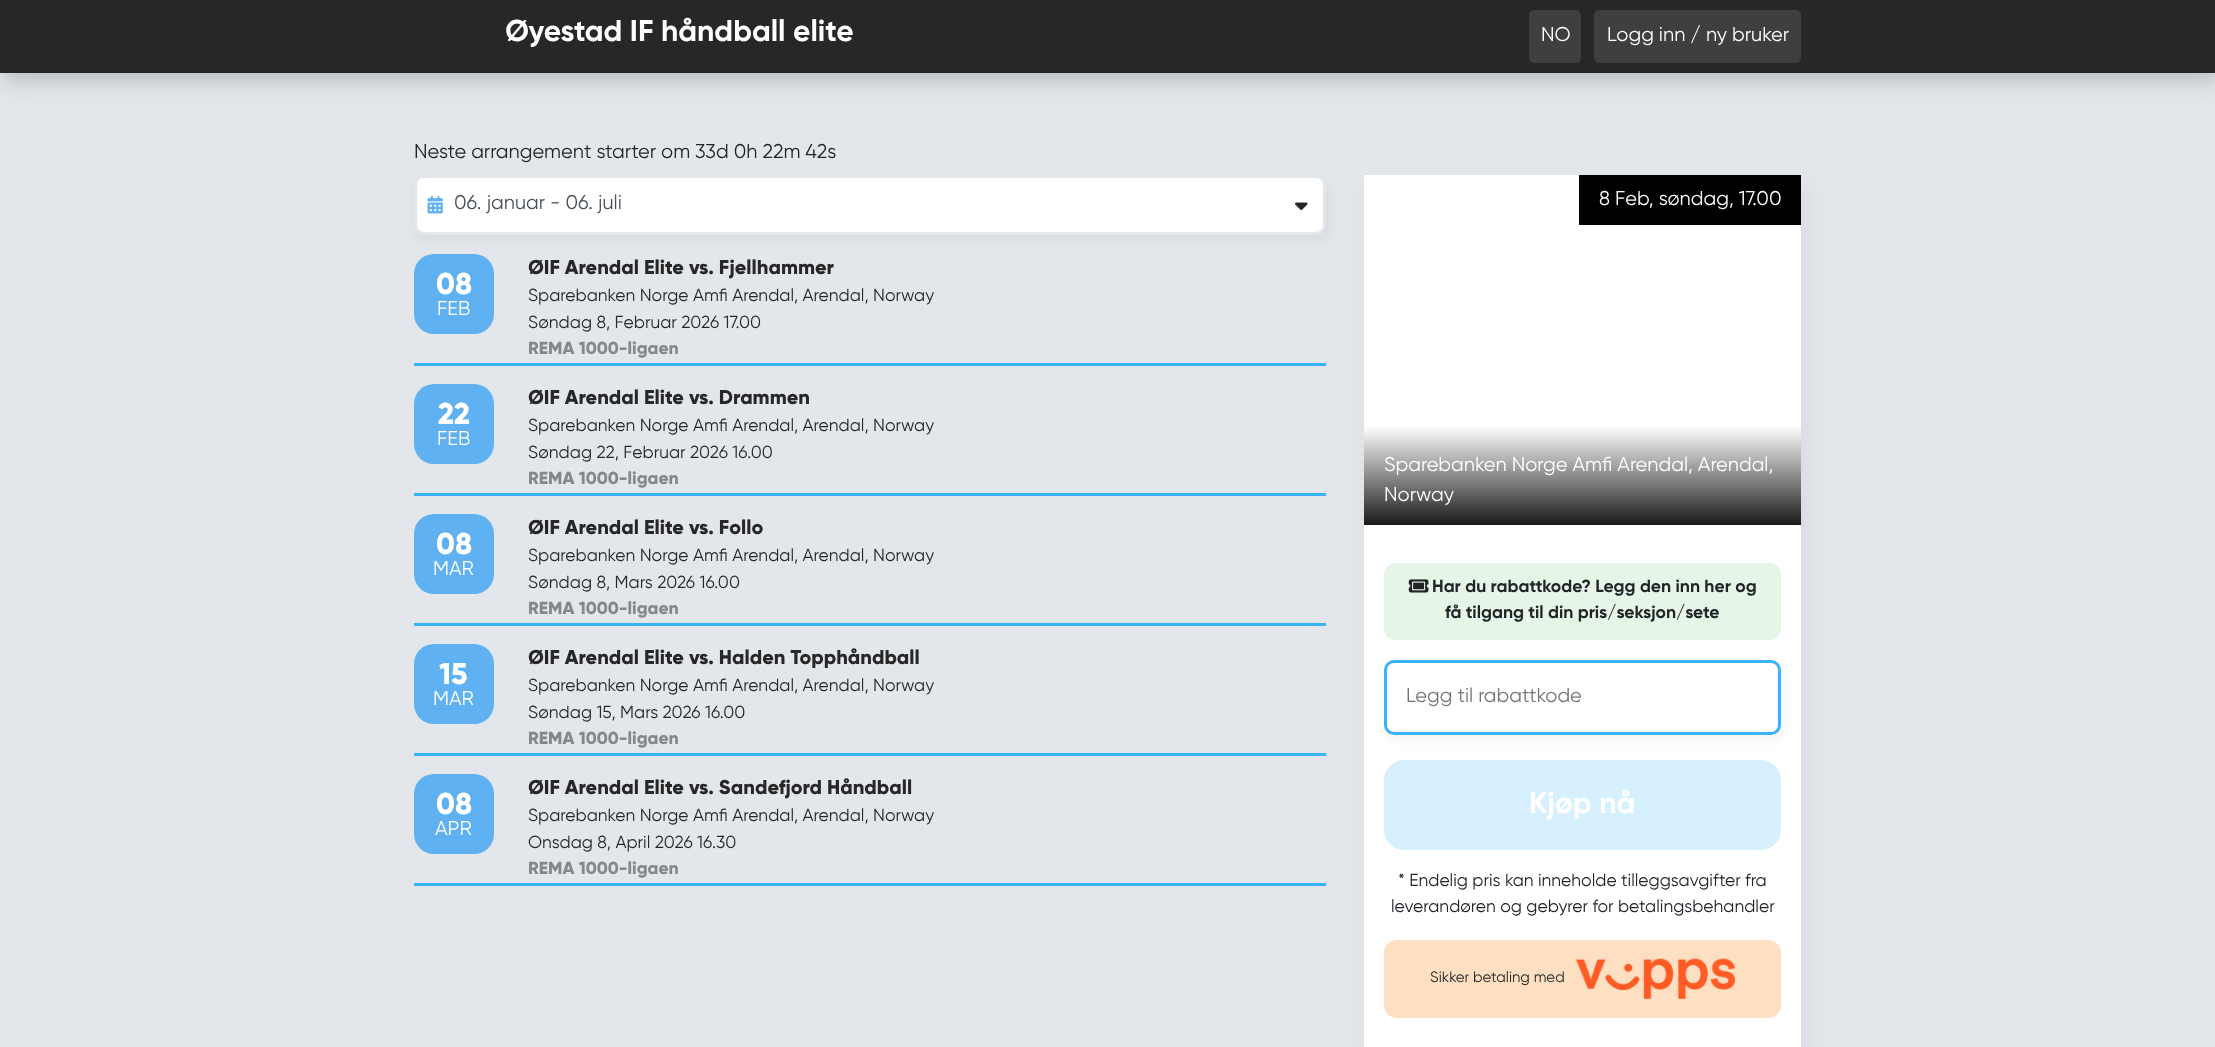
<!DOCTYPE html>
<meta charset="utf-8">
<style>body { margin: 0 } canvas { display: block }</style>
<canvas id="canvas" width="2215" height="1047"></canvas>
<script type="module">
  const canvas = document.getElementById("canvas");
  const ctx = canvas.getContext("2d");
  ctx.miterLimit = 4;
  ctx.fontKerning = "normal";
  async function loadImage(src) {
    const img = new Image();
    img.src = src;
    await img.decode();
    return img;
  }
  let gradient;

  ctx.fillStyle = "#e3e7ec";
  ctx.fillRect(0, 0, 2215, 1047);
  ctx.fillStyle = "rgba(0, 0, 0, 0.16)";
  ctx.filter = "blur(10px)";
  ctx.beginPath();
  ctx.rect(5, 10, 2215, 73);
  ctx.fill();
  ctx.filter = "none";
  ctx.fillStyle = "#272727";
  ctx.fillRect(0, 0, 2215, 73);
  ctx.font = "bold 30px Gilroy";
  ctx.fillStyle = "#ffffff";
  ctx.fillText("Øyestad IF håndball elite", 505, 41);
  ctx.fillStyle = "#403e3e";
  ctx.beginPath();
  ctx.roundRect(1529, 10, 52, 53, 5);
  ctx.fill();
  ctx.font = "20px Gilroy";
  ctx.fillStyle = "#ffffff";
  ctx.fillText("NO", 1541, 41);
  ctx.fillStyle = "#403e3e";
  ctx.beginPath();
  ctx.roundRect(1594, 10, 207, 53, 5);
  ctx.fill();
  ctx.fillStyle = "#ffffff";
  ctx.fillText("Logg inn / ny bruker", 1607, 41);
  ctx.fillStyle = "#212529";
  ctx.fillText("Neste arrangement starter om 33d 0h 22m 42s", 414, 158);
  ctx.fillStyle = "#5fb1f1";
  ctx.beginPath();
  ctx.roundRect(414, 254, 80, 80, 20);
  ctx.fill();
  ctx.fillStyle = "rgba(0, 0, 0, 0.05)";
  ctx.filter = "blur(5px)";
  ctx.beginPath();
  ctx.roundRect(416, 180, 913, 60, 10);
  ctx.fill();
  ctx.filter = "none";
  ctx.fillStyle = "#ffffff";
  ctx.beginPath();
  ctx.roundRect(415.5, 176.5, 909, 57, 8.5);
  ctx.fill();
  ctx.strokeStyle = "#e3e7ec";
  ctx.lineWidth = 3;
  ctx.stroke();
  ctx.drawImage(await loadImage("img1.png"), 427, 196, 16, 18);
  ctx.fillStyle = "#495057";
  ctx.fillText("06. januar - 06. juli", 454, 209);
  ctx.drawImage(await loadImage("img2.png"), 1295, 202, 13, 8);
  ctx.fillStyle = "#39b3f7";
  ctx.fillRect(414, 363, 912, 3);
  ctx.font = "800 30px Gilroy";
  ctx.fillStyle = "#ffffff";
  ctx.fillText("08", 436, 294);
  ctx.font = "20px Gilroy";
  ctx.fillText("FEB", 437, 315);
  ctx.font = "800 20px Gilroy";
  ctx.fillStyle = "#272727";
  ctx.fillText("ØIF Arendal Elite vs. Fjellhammer", 528, 274);
  ctx.font = "17.5px Gilroy";
  ctx.fillText("Sparebanken Norge Amfi Arendal, Arendal, Norway", 528, 301);
  ctx.fillText("Søndag 8, Februar 2026 17.00", 528, 328);
  ctx.font = "800 17.5px Gilroy";
  ctx.fillStyle = "#85878a";
  ctx.fillText("REMA 1000-ligaen", 528, 354);
  ctx.fillStyle = "#39b3f7";
  ctx.fillRect(414, 493, 912, 3);
  ctx.fillStyle = "#5fb1f1";
  ctx.beginPath();
  ctx.roundRect(414, 384, 80, 80, 20);
  ctx.fill();
  ctx.font = "800 30px Gilroy";
  ctx.fillStyle = "#ffffff";
  ctx.fillText("22", 438, 424);
  ctx.font = "20px Gilroy";
  ctx.fillText("FEB", 437, 445);
  ctx.font = "800 20px Gilroy";
  ctx.fillStyle = "#272727";
  ctx.fillText("ØIF Arendal Elite vs. Drammen", 528, 404);
  ctx.font = "17.5px Gilroy";
  ctx.fillText("Sparebanken Norge Amfi Arendal, Arendal, Norway", 528, 431);
  ctx.fillText("Søndag 22, Februar 2026 16.00", 528, 458);
  ctx.font = "800 17.5px Gilroy";
  ctx.fillStyle = "#85878a";
  ctx.fillText("REMA 1000-ligaen", 528, 484);
  ctx.fillStyle = "#39b3f7";
  ctx.fillRect(414, 623, 912, 3);
  ctx.fillStyle = "#5fb1f1";
  ctx.beginPath();
  ctx.roundRect(414, 514, 80, 80, 20);
  ctx.fill();
  ctx.font = "800 30px Gilroy";
  ctx.fillStyle = "#ffffff";
  ctx.fillText("08", 436, 554);
  ctx.font = "20px Gilroy";
  ctx.fillText("MAR", 433, 575);
  ctx.font = "800 20px Gilroy";
  ctx.fillStyle = "#272727";
  ctx.fillText("ØIF Arendal Elite vs. Follo", 528, 534);
  ctx.font = "17.5px Gilroy";
  ctx.fillText("Sparebanken Norge Amfi Arendal, Arendal, Norway", 528, 561);
  ctx.fillText("Søndag 8, Mars 2026 16.00", 528, 588);
  ctx.font = "800 17.5px Gilroy";
  ctx.fillStyle = "#85878a";
  ctx.fillText("REMA 1000-ligaen", 528, 614);
  ctx.fillStyle = "#39b3f7";
  ctx.fillRect(414, 753, 912, 3);
  ctx.fillStyle = "#5fb1f1";
  ctx.beginPath();
  ctx.roundRect(414, 644, 80, 80, 20);
  ctx.fill();
  ctx.font = "800 30px Gilroy";
  ctx.fillStyle = "#ffffff";
  ctx.fillText("15", 439, 684);
  ctx.font = "20px Gilroy";
  ctx.fillText("MAR", 433, 705);
  ctx.font = "800 20px Gilroy";
  ctx.fillStyle = "#272727";
  ctx.fillText("ØIF Arendal Elite vs. Halden Topphåndball", 528, 664);
  ctx.font = "17.5px Gilroy";
  ctx.fillText("Sparebanken Norge Amfi Arendal, Arendal, Norway", 528, 691);
  ctx.fillText("Søndag 15, Mars 2026 16.00", 528, 718);
  ctx.font = "800 17.5px Gilroy";
  ctx.fillStyle = "#85878a";
  ctx.fillText("REMA 1000-ligaen", 528, 744);
  ctx.fillStyle = "#39b3f7";
  ctx.fillRect(414, 883, 912, 3);
  ctx.fillStyle = "#5fb1f1";
  ctx.beginPath();
  ctx.roundRect(414, 774, 80, 80, 20);
  ctx.fill();
  ctx.font = "800 30px Gilroy";
  ctx.fillStyle = "#ffffff";
  ctx.fillText("08", 436, 814);
  ctx.font = "20px Gilroy";
  ctx.fillText("APR", 435, 835);
  ctx.font = "800 20px Gilroy";
  ctx.fillStyle = "#272727";
  ctx.fillText("ØIF Arendal Elite vs. Sandefjord Håndball", 528, 794);
  ctx.font = "17.5px Gilroy";
  ctx.fillText("Sparebanken Norge Amfi Arendal, Arendal, Norway", 528, 821);
  ctx.fillText("Onsdag 8, April 2026 16.30", 528, 848);
  ctx.font = "800 17.5px Gilroy";
  ctx.fillStyle = "#85878a";
  ctx.fillText("REMA 1000-ligaen", 528, 874);
  ctx.fillStyle = "rgba(0, 0, 0, 0.05)";
  ctx.filter = "blur(10px)";
  ctx.beginPath();
  ctx.rect(1369, 185, 437, 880);
  ctx.fill();
  ctx.filter = "none";
  ctx.fillStyle = "#ffffff";
  ctx.fillRect(1364, 175, 437, 872);
  ctx.fillStyle = "#000000";
  ctx.fillRect(1579, 175, 222, 50);
  ctx.font = "20px Gilroy";
  ctx.fillStyle = "#ffffff";
  ctx.fillText("8 Feb, søndag, 17.00", 1599, 205);
  gradient = ctx.createLinearGradient(1583, 426, 1583, 525);
  gradient.addColorStop(0, "#ffffff");
  gradient.addColorStop(1, "#1a1a1a");
  ctx.fillStyle = gradient;
  ctx.fillRect(1364, 427, 437, 98);
  ctx.fillStyle = "#ffffff";
  ctx.fillText("Sparebanken Norge Amfi Arendal, Arendal,", 1384, 471);
  ctx.fillText("Norway", 1384, 501);
  ctx.fillStyle = "#e6f6e6";
  ctx.beginPath();
  ctx.roundRect(1384, 563, 397, 77, 11);
  ctx.fill();
  ctx.drawImage(await loadImage("img3.png"), 1408, 579, 21, 14);
  ctx.font = "bold 17.5px Gilroy";
  ctx.fillStyle = "#212529";
  ctx.fillText("Har du rabattkode? Legg den inn her og", 1432, 592);
  ctx.fillText("få tilgang til din pris/seksjon/sete", 1445, 618);
  ctx.fillStyle = "rgba(0, 0, 0, 0.05)";
  ctx.filter = "blur(5px)";
  ctx.beginPath();
  ctx.roundRect(1386, 665, 398, 75, 10);
  ctx.fill();
  ctx.filter = "none";
  ctx.fillStyle = "#ffffff";
  ctx.beginPath();
  ctx.roundRect(1385.5, 661.5, 394, 72, 8.5);
  ctx.fill();
  ctx.strokeStyle = "#39b3f7";
  ctx.stroke();
  ctx.font = "20px Gilroy";
  ctx.fillStyle = "#757575";
  ctx.fillText("Legg til rabattkode", 1406, 702);
  ctx.fillStyle = "#d7f0fd";
  ctx.beginPath();
  ctx.roundRect(1384.5, 760.5, 396, 89, 19.5);
  ctx.fill();
  ctx.strokeStyle = "#d7f0fd";
  ctx.lineWidth = 1;
  ctx.stroke();
  ctx.font = "bold 30px Gilroy";
  ctx.fillStyle = "#ffffff";
  ctx.fillText("Kjøp nå", 1529, 813);
  ctx.font = "17.5px Gilroy";
  ctx.fillStyle = "#212529";
  ctx.fillText("* Endelig pris kan inneholde tilleggsavgifter fra", 1398, 886);
  ctx.fillText("leverandøren og gebyrer for betalingsbehandler", 1391, 912);
  ctx.fillStyle = "#ffdfc1";
  ctx.beginPath();
  ctx.roundRect(1384, 940, 397, 78, 13);
  ctx.fill();
  ctx.font = "15px Gilroy";
  ctx.fillStyle = "#212529";
  ctx.fillText("Sikker betaling med", 1430, 982);
  ctx.drawImage(await loadImage("img4.png"), 1576, 958, 159, 41);
</script>
